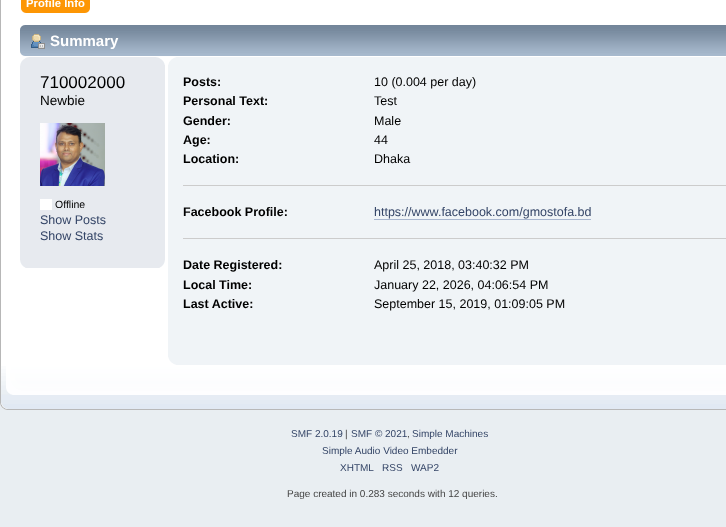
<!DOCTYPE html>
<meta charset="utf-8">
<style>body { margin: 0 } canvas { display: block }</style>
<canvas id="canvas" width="726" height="527"></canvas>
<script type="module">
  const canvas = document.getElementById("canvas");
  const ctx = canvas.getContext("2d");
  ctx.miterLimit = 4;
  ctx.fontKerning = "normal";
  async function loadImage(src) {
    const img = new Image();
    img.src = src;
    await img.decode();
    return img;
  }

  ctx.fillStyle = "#e9eef2";
  ctx.fillRect(0, 0, 726, 527);
  ctx.fillStyle = "#ffffff";
  ctx.fillRect(1, 0, 725, 366);
  ctx.fillStyle = "#b7b7b7";
  ctx.fillRect(0, 0, 1, 366);
  ctx.drawImage(await loadImage("img1.png"), 26, 0, 64, 13);
  ctx.drawImage(await loadImage("img2.png"), 21, 0, 5, 13);
  ctx.font = "bold 11.25px Liberation Sans";
  ctx.fillStyle = "#ffffff";
  ctx.fillText("Profile Info", 26, 7);
  ctx.drawImage(await loadImage("img3.png"), 20, 25, 706, 31);
  ctx.drawImage(await loadImage("img4.png"), 31, 34, 14, 15);
  ctx.font = "bold 15px Liberation Sans";
  ctx.fillText("Summary", 50, 46);
  ctx.fillStyle = "#e7eaef";
  ctx.fillRect(20, 57, 145, 211);
  ctx.drawImage(await loadImage("img5.png"), 20, 57, 9, 9);
  ctx.drawImage(await loadImage("img6.png"), 156, 57, 9, 8);
  ctx.font = "17px Liberation Sans";
  ctx.fillStyle = "#000000";
  ctx.fillText("710002000", 40, 88);
  ctx.font = "13.5px Liberation Sans";
  ctx.fillText("Newbie", 40, 105);
  ctx.drawImage(await loadImage("img7.png"), 40, 123, 65, 63);
  ctx.fillStyle = "#ffffff";
  ctx.fillRect(40, 199, 12, 11);
  ctx.font = "10.5px Liberation Sans";
  ctx.fillStyle = "#000000";
  ctx.fillText("Offline", 55, 208);
  ctx.font = "12.5px Liberation Sans";
  ctx.fillStyle = "#334466";
  ctx.fillText("Show Posts", 40, 224);
  ctx.fillText("Show Stats", 40, 240);
  ctx.drawImage(await loadImage("img8.png"), 20, 260, 6, 8);
  ctx.drawImage(await loadImage("img9.png"), 159, 260, 6, 8);
  ctx.fillStyle = "#f0f4f7";
  ctx.fillRect(168, 57, 558, 308);
  ctx.drawImage(await loadImage("img10.png"), 168, 57, 8, 8);
  ctx.fillStyle = "#cccccc";
  ctx.fillRect(183, 185, 543, 1);
  ctx.font = "bold 12.5px Liberation Sans";
  ctx.fillStyle = "#000000";
  ctx.fillText("Posts:", 183, 86);
  ctx.font = "12.5px Liberation Sans";
  ctx.fillText("10 (0.004 per day)", 374, 86);
  ctx.font = "bold 12.5px Liberation Sans";
  ctx.fillText("Personal Text:", 183, 105);
  ctx.font = "12.5px Liberation Sans";
  ctx.fillText("Test", 374, 105);
  ctx.font = "bold 12.5px Liberation Sans";
  ctx.fillText("Gender:", 183, 125);
  ctx.font = "12.5px Liberation Sans";
  ctx.fillText("Male", 374, 125);
  ctx.font = "bold 12.5px Liberation Sans";
  ctx.fillText("Age:", 183, 144);
  ctx.font = "12.5px Liberation Sans";
  ctx.fillText("44", 374, 144);
  ctx.font = "bold 12.5px Liberation Sans";
  ctx.fillText("Location:", 183, 163);
  ctx.font = "12.5px Liberation Sans";
  ctx.fillText("Dhaka", 374, 163);
  ctx.fillStyle = "#cccccc";
  ctx.fillRect(183, 238, 543, 1);
  ctx.font = "bold 12.5px Liberation Sans";
  ctx.fillStyle = "#000000";
  ctx.fillText("Facebook Profile:", 183, 216);
  ctx.font = "12.5px Liberation Sans";
  ctx.fillStyle = "#334466";
  ctx.fillText("https://www.facebook.com/gmostofa.bd", 374, 216);
  ctx.fillStyle = "#a8b6cf";
  ctx.fillRect(374, 219, 217, 1);
  ctx.font = "bold 12.5px Liberation Sans";
  ctx.fillStyle = "#000000";
  ctx.fillText("Date Registered:", 183, 269);
  ctx.font = "12.5px Liberation Sans";
  ctx.fillText("April 25, 2018, 03:40:32 PM", 374, 269);
  ctx.font = "bold 12.5px Liberation Sans";
  ctx.fillText("Local Time:", 183, 289);
  ctx.font = "12.5px Liberation Sans";
  ctx.fillText("January 22, 2026, 04:06:54 PM", 374, 289);
  ctx.font = "bold 12.5px Liberation Sans";
  ctx.fillText("Last Active:", 183, 308);
  ctx.font = "12.5px Liberation Sans";
  ctx.fillText("September 15, 2019, 01:09:05 PM", 374, 308);
  ctx.drawImage(await loadImage("img11.png"), 168, 357, 8, 8);
  ctx.drawImage(await loadImage("img12.png"), 0, 366, 726, 44);
  ctx.font = "10px Liberation Sans";
  ctx.fillStyle = "#334466";
  ctx.fillText("SMF 2.0.19", 291, 437);
  ctx.fillStyle = "#444444";
  ctx.fillText("|", 345, 437);
  ctx.fillStyle = "#334466";
  ctx.fillText("SMF © 2021", 351, 437);
  ctx.fillStyle = "#444444";
  ctx.fillText(",", 407, 437);
  ctx.fillStyle = "#334466";
  ctx.fillText("Simple Machines", 412, 437);
  ctx.fillText("Simple Audio Video Embedder", 322, 454);
  ctx.fillText("XHTML", 340, 471);
  ctx.fillText("RSS", 382, 471);
  ctx.fillText("WAP2", 411, 471);
  ctx.fillStyle = "#444444";
  ctx.fillText("Page created in 0.283 seconds with 12 queries.", 287, 497);
</script>
